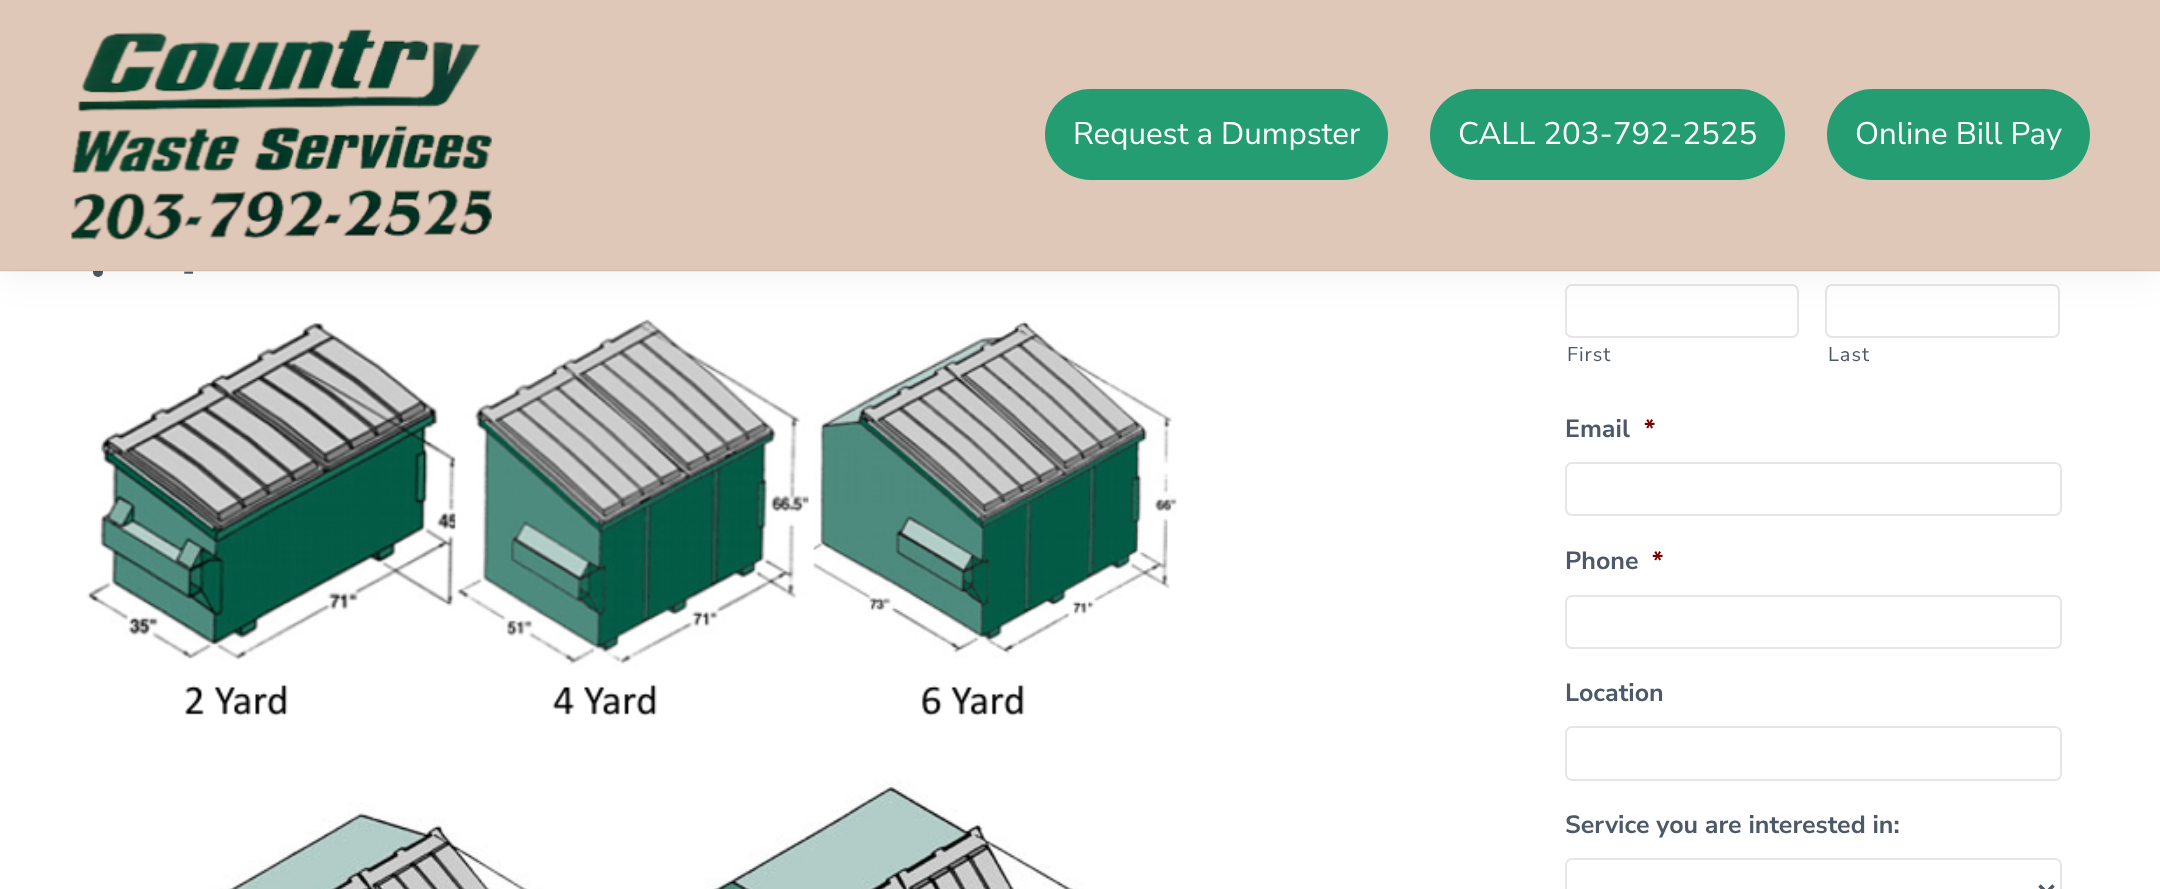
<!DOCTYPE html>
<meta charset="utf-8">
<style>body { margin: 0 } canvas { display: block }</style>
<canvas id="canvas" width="2160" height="889"></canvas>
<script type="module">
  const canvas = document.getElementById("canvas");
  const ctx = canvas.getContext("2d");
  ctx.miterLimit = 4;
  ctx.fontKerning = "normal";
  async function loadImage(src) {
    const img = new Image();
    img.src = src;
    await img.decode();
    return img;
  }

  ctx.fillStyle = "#ffffff";
  ctx.fillRect(0, 0, 2160, 889);
  ctx.fillStyle = "#4d5968";
  ctx.beginPath();
  ctx.roundRect(93, 266, 10, 11, 5);
  ctx.fill();
  ctx.drawImage(await loadImage("img2.png"), 87, 319, 1090, 570);
  ctx.beginPath();
  ctx.roundRect(1566, 285, 232, 52, 6);
  ctx.strokeStyle = "#e6e6e6";
  ctx.lineWidth = 2;
  ctx.stroke();
  ctx.beginPath();
  ctx.roundRect(1826, 285, 233, 52, 6);
  ctx.stroke();
  ctx.fillStyle = "rgba(0, 0, 0, 0.07)";
  ctx.filter = "blur(21px)";
  ctx.beginPath();
  ctx.rect(0, 0, 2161, 271);
  ctx.fill();
  ctx.filter = "none";
  ctx.fillStyle = "#e0c8b9";
  ctx.fillRect(0, 0, 2160, 271);
  ctx.fillStyle = "rgba(10, 20, 30, 0.05)";
  ctx.fillRect(0, 270, 2160, 2);
  ctx.drawImage(await loadImage("img1.png"), 71, 29, 421, 211);
  ctx.fillStyle = "#239d71";
  ctx.beginPath();
  ctx.roundRect(1045, 89, 343, 91, 45.5);
  ctx.fill();
  ctx.font = "31.25px Nunito Sans";
  ctx.fillStyle = "#ffffff";
  ctx.fillText("Request a Dumpster", 1073, 144);
  ctx.fillStyle = "#239d71";
  ctx.beginPath();
  ctx.roundRect(1430, 89, 355, 91, 45.5);
  ctx.fill();
  ctx.fillStyle = "#ffffff";
  ctx.fillText("CALL 203-792-2525", 1458, 144);
  ctx.fillStyle = "#239d71";
  ctx.beginPath();
  ctx.roundRect(1827, 89, 263, 91, 45.5);
  ctx.fill();
  ctx.fillStyle = "#ffffff";
  ctx.fillText("Online Bill Pay", 1855, 144);
  ctx.fillStyle = "#4d5968";
  ctx.fillText("-", 182, 281);
  ctx.letterSpacing = "1px";
  ctx.font = "20px Nunito Sans";
  ctx.fillText("First", 1567, 361);
  ctx.fillText("Last", 1828, 361);
  ctx.letterSpacing = "0px";
  ctx.font = "bold 25px Nunito Sans";
  ctx.fillText("Email", 1565, 437);
  ctx.fillStyle = "#790000";
  ctx.fillText("*", 1644, 437);
  ctx.beginPath();
  ctx.roundRect(1566, 463, 495, 52, 6);
  ctx.stroke();
  ctx.fillStyle = "#4d5968";
  ctx.fillText("Phone", 1565, 569);
  ctx.fillStyle = "#790000";
  ctx.fillText("*", 1652, 569);
  ctx.beginPath();
  ctx.roundRect(1566, 596, 495, 52, 6);
  ctx.stroke();
  ctx.fillStyle = "#4d5968";
  ctx.fillText("Location", 1565, 701);
  ctx.beginPath();
  ctx.roundRect(1566, 727, 495, 53, 6);
  ctx.stroke();
  ctx.fillText("Service you are interested in:", 1565, 833);
  ctx.beginPath();
  ctx.roundRect(1566, 859, 495, 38, 6);
  ctx.stroke();
  ctx.beginPath();
  ctx.moveTo(2039.5, 885.5);
  ctx.lineTo(2046.5, 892.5);
  ctx.lineTo(2053.5, 885.5);
  ctx.strokeStyle = "#4d5968";
  ctx.lineWidth = 3.5;
  ctx.stroke();
</script>
